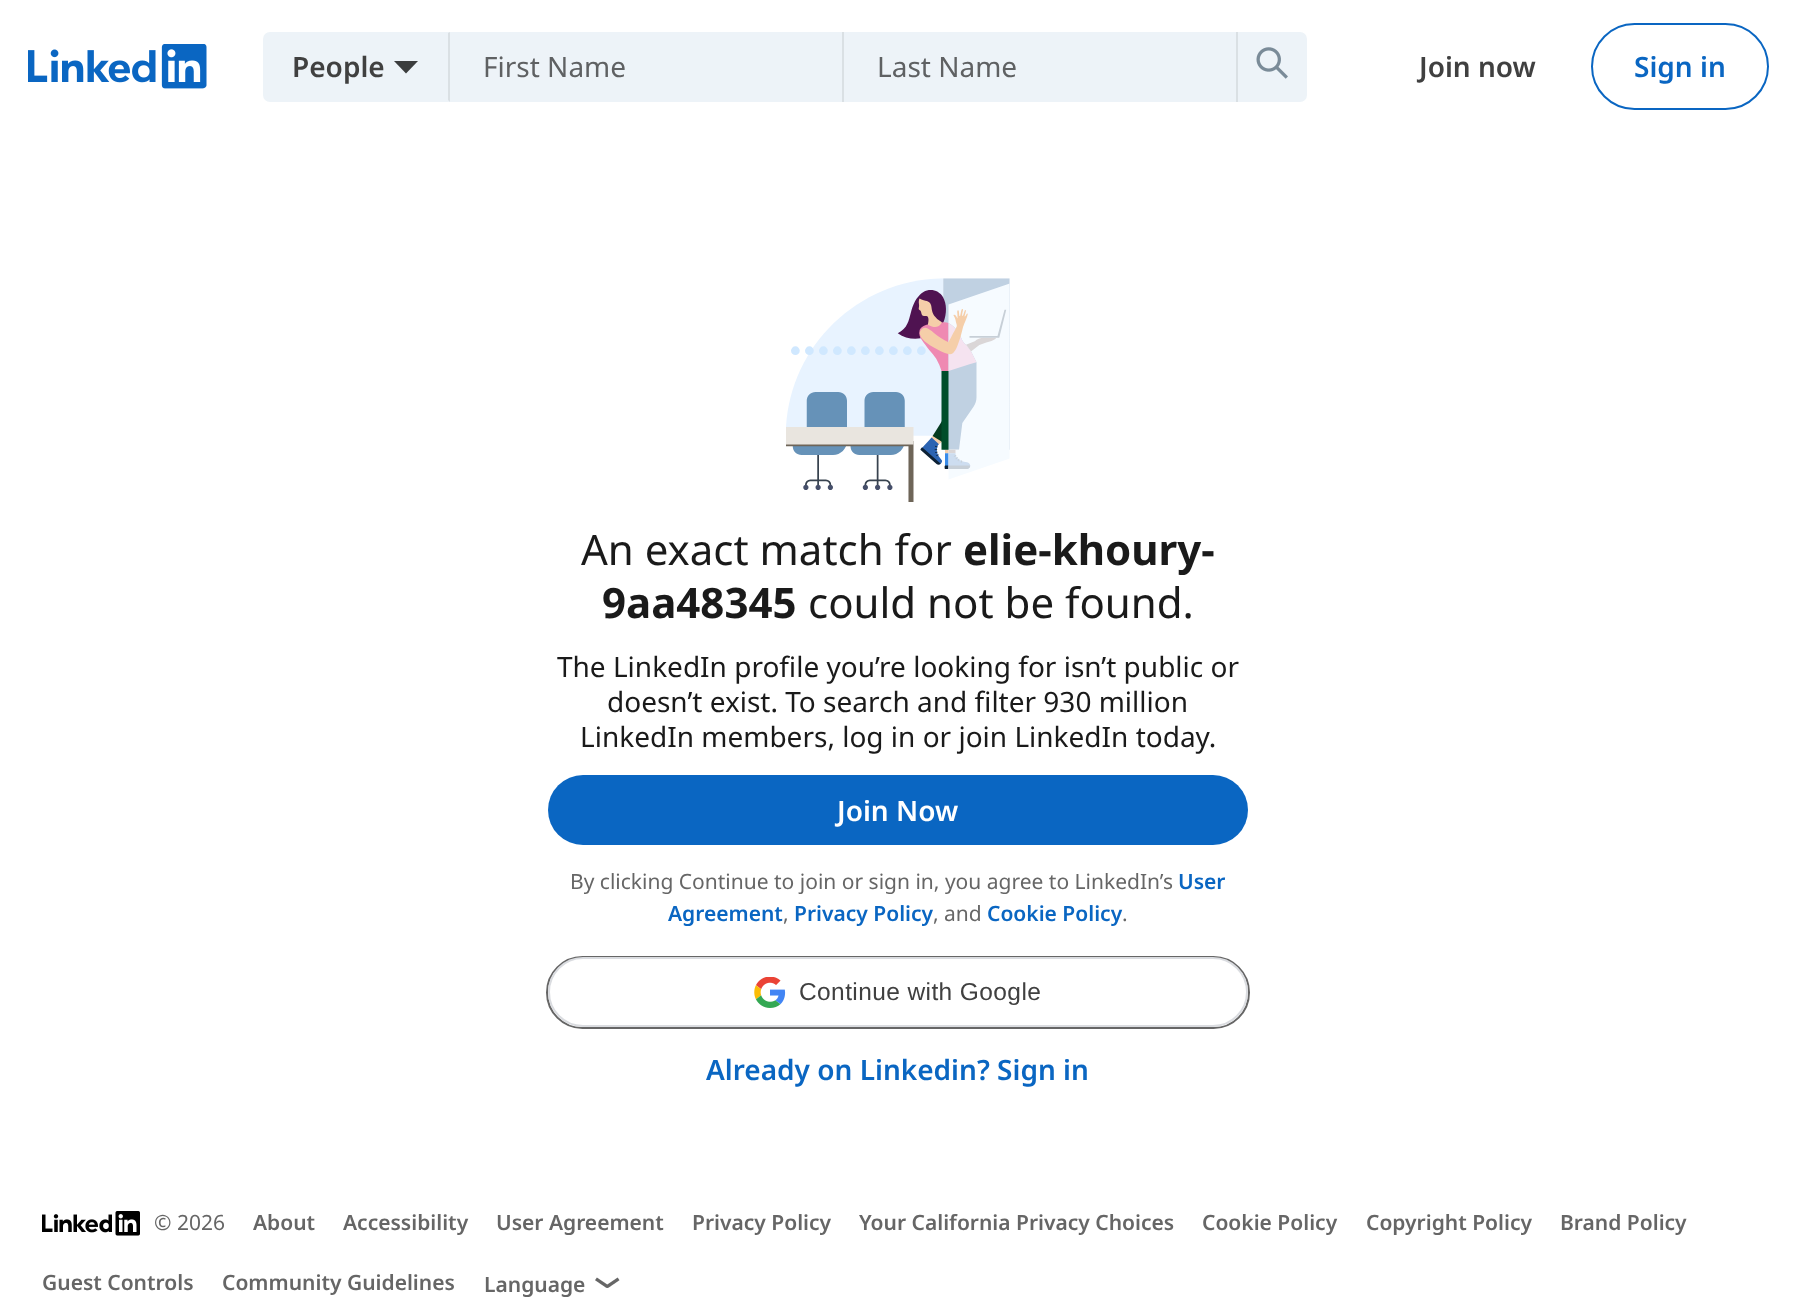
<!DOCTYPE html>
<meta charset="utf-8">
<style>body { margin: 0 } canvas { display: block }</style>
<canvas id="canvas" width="1795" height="1313"></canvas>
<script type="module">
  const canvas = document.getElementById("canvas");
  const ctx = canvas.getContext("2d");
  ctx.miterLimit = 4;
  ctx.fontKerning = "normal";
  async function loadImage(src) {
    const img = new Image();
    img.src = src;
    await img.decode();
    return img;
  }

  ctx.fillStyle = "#ffffff";
  ctx.fillRect(0, 0, 1795, 1313);
  ctx.drawImage(await loadImage("img1.png"), 28, 44, 179, 45);
  ctx.fillStyle = "#edf3f8";
  ctx.beginPath();
  ctx.roundRect(263, 32, 1044, 70, 7);
  ctx.fill();
  ctx.fillStyle = "#dae0e4";
  ctx.beginPath();
  ctx.moveTo(450, 32);
  ctx.lineTo(450, 102);
  ctx.lineTo(448, 100);
  ctx.lineTo(448, 33);
  ctx.closePath();
  ctx.fill();
  ctx.font = "600 28px Noto Sans";
  ctx.fillStyle = "#404040";
  ctx.fillText("People", 292, 77);
  ctx.fillStyle = "#3b3d3e";
  ctx.beginPath();
  ctx.moveTo(406, 73.5);
  ctx.lineTo(394, 61);
  ctx.lineTo(418, 61);
  ctx.closePath();
  ctx.fill("evenodd");
  ctx.fillStyle = "#dae0e4";
  ctx.fillRect(842, 32, 2, 70);
  ctx.font = "28px Noto Sans";
  ctx.fillStyle = "#5f6163";
  ctx.fillText("First Name", 483, 77);
  ctx.fillStyle = "#dae0e4";
  ctx.fillRect(1236, 32, 2, 70);
  ctx.fillStyle = "#5f6163";
  ctx.fillText("Last Name", 877, 77);
  ctx.drawImage(await loadImage("img2.png"), 1256, 47, 32, 32);
  ctx.font = "600 28px Noto Sans";
  ctx.fillStyle = "#404040";
  ctx.fillText("Join now", 1419, 77);
  ctx.beginPath();
  ctx.roundRect(1592, 24, 176, 85, 42.5);
  ctx.strokeStyle = "#0a66c2";
  ctx.lineWidth = 2;
  ctx.stroke();
  ctx.fillStyle = "#0a66c2";
  ctx.fillText("Sign in", 1634, 77);
  ctx.drawImage(await loadImage("img3.png"), 786, 278, 224, 224);
  ctx.font = "42px Noto Sans";
  ctx.fillStyle = "#1a1a1a";
  ctx.fillText("An exact match for", 581, 565);
  ctx.font = "bold 42px Noto Sans";
  ctx.fillText("elie-khoury-", 963, 565);
  ctx.fillText("9aa48345", 602, 618);
  ctx.font = "42px Noto Sans";
  ctx.fillText("could not be found.", 808, 618);
  ctx.font = "28px Noto Sans";
  ctx.fillText("The LinkedIn profile you’re looking for isn’t public or", 557, 677);
  ctx.fillText("doesn’t exist. To search and filter 930 million", 607, 712);
  ctx.fillText("LinkedIn members, log in or join LinkedIn today.", 580, 747);
  ctx.fillStyle = "#0a66c2";
  ctx.beginPath();
  ctx.roundRect(548, 775, 700, 70, 35);
  ctx.fill();
  ctx.font = "600 28px Noto Sans";
  ctx.fillStyle = "#ffffff";
  ctx.fillText("Join Now", 837, 821);
  ctx.font = "21px Noto Sans";
  ctx.fillStyle = "#666666";
  ctx.fillText("By clicking Continue to join or sign in, you agree to LinkedIn’s", 570, 889);
  ctx.font = "600 21px Noto Sans";
  ctx.fillStyle = "#0a66c2";
  ctx.fillText("User", 1178, 889);
  ctx.fillText("Agreement", 668, 921);
  ctx.font = "21px Noto Sans";
  ctx.fillStyle = "#666666";
  ctx.fillText(",", 783, 921);
  ctx.font = "600 21px Noto Sans";
  ctx.fillStyle = "#0a66c2";
  ctx.fillText("Privacy Policy", 794, 921);
  ctx.font = "21px Noto Sans";
  ctx.fillStyle = "#666666";
  ctx.fillText(", and", 933, 921);
  ctx.font = "600 21px Noto Sans";
  ctx.fillStyle = "#0a66c2";
  ctx.fillText("Cookie Policy", 987, 921);
  ctx.font = "21px Noto Sans";
  ctx.fillStyle = "#666666";
  ctx.fillText(".", 1122, 921);
  ctx.beginPath();
  ctx.roundRect(547, 957, 702, 71, 35.5);
  ctx.strokeStyle = "#666666";
  ctx.stroke();
  ctx.fillStyle = "#ffffff";
  ctx.beginPath();
  ctx.roundRect(549, 958, 698, 68, 34);
  ctx.fill();
  ctx.strokeStyle = "#dadce0";
  ctx.stroke();
  ctx.drawImage(await loadImage("img4.png"), 754, 977, 32, 31);
  ctx.letterSpacing = "0.4px";
  ctx.font = "24.5px Liberation Sans";
  ctx.fillStyle = "#404040";
  ctx.fillText("Continue with Google", 799, 1000);
  ctx.letterSpacing = "0px";
  ctx.font = "600 28px Noto Sans";
  ctx.fillStyle = "#0a66c2";
  ctx.fillText("Already on Linkedin? Sign in", 706, 1080);
  ctx.drawImage(await loadImage("img5.png"), 42, 1211, 98, 25);
  ctx.font = "21px Noto Sans";
  ctx.fillStyle = "#666666";
  ctx.fillText("© 2026", 154, 1230);
  ctx.font = "600 21px Noto Sans";
  ctx.fillText("About", 253, 1230);
  ctx.fillText("Accessibility", 343, 1230);
  ctx.fillText("User Agreement", 496, 1230);
  ctx.fillText("Privacy Policy", 692, 1230);
  ctx.fillText("Your California Privacy Choices", 859, 1230);
  ctx.fillText("Cookie Policy", 1202, 1230);
  ctx.fillText("Copyright Policy", 1366, 1230);
  ctx.fillText("Brand Policy", 1560, 1230);
  ctx.fillText("Guest Controls", 42, 1290);
  ctx.fillText("Community Guidelines", 222, 1290);
  ctx.fillText("Language", 484, 1292);
  ctx.drawImage(await loadImage("img6.png"), 595, 1277, 25, 11);
</script>
